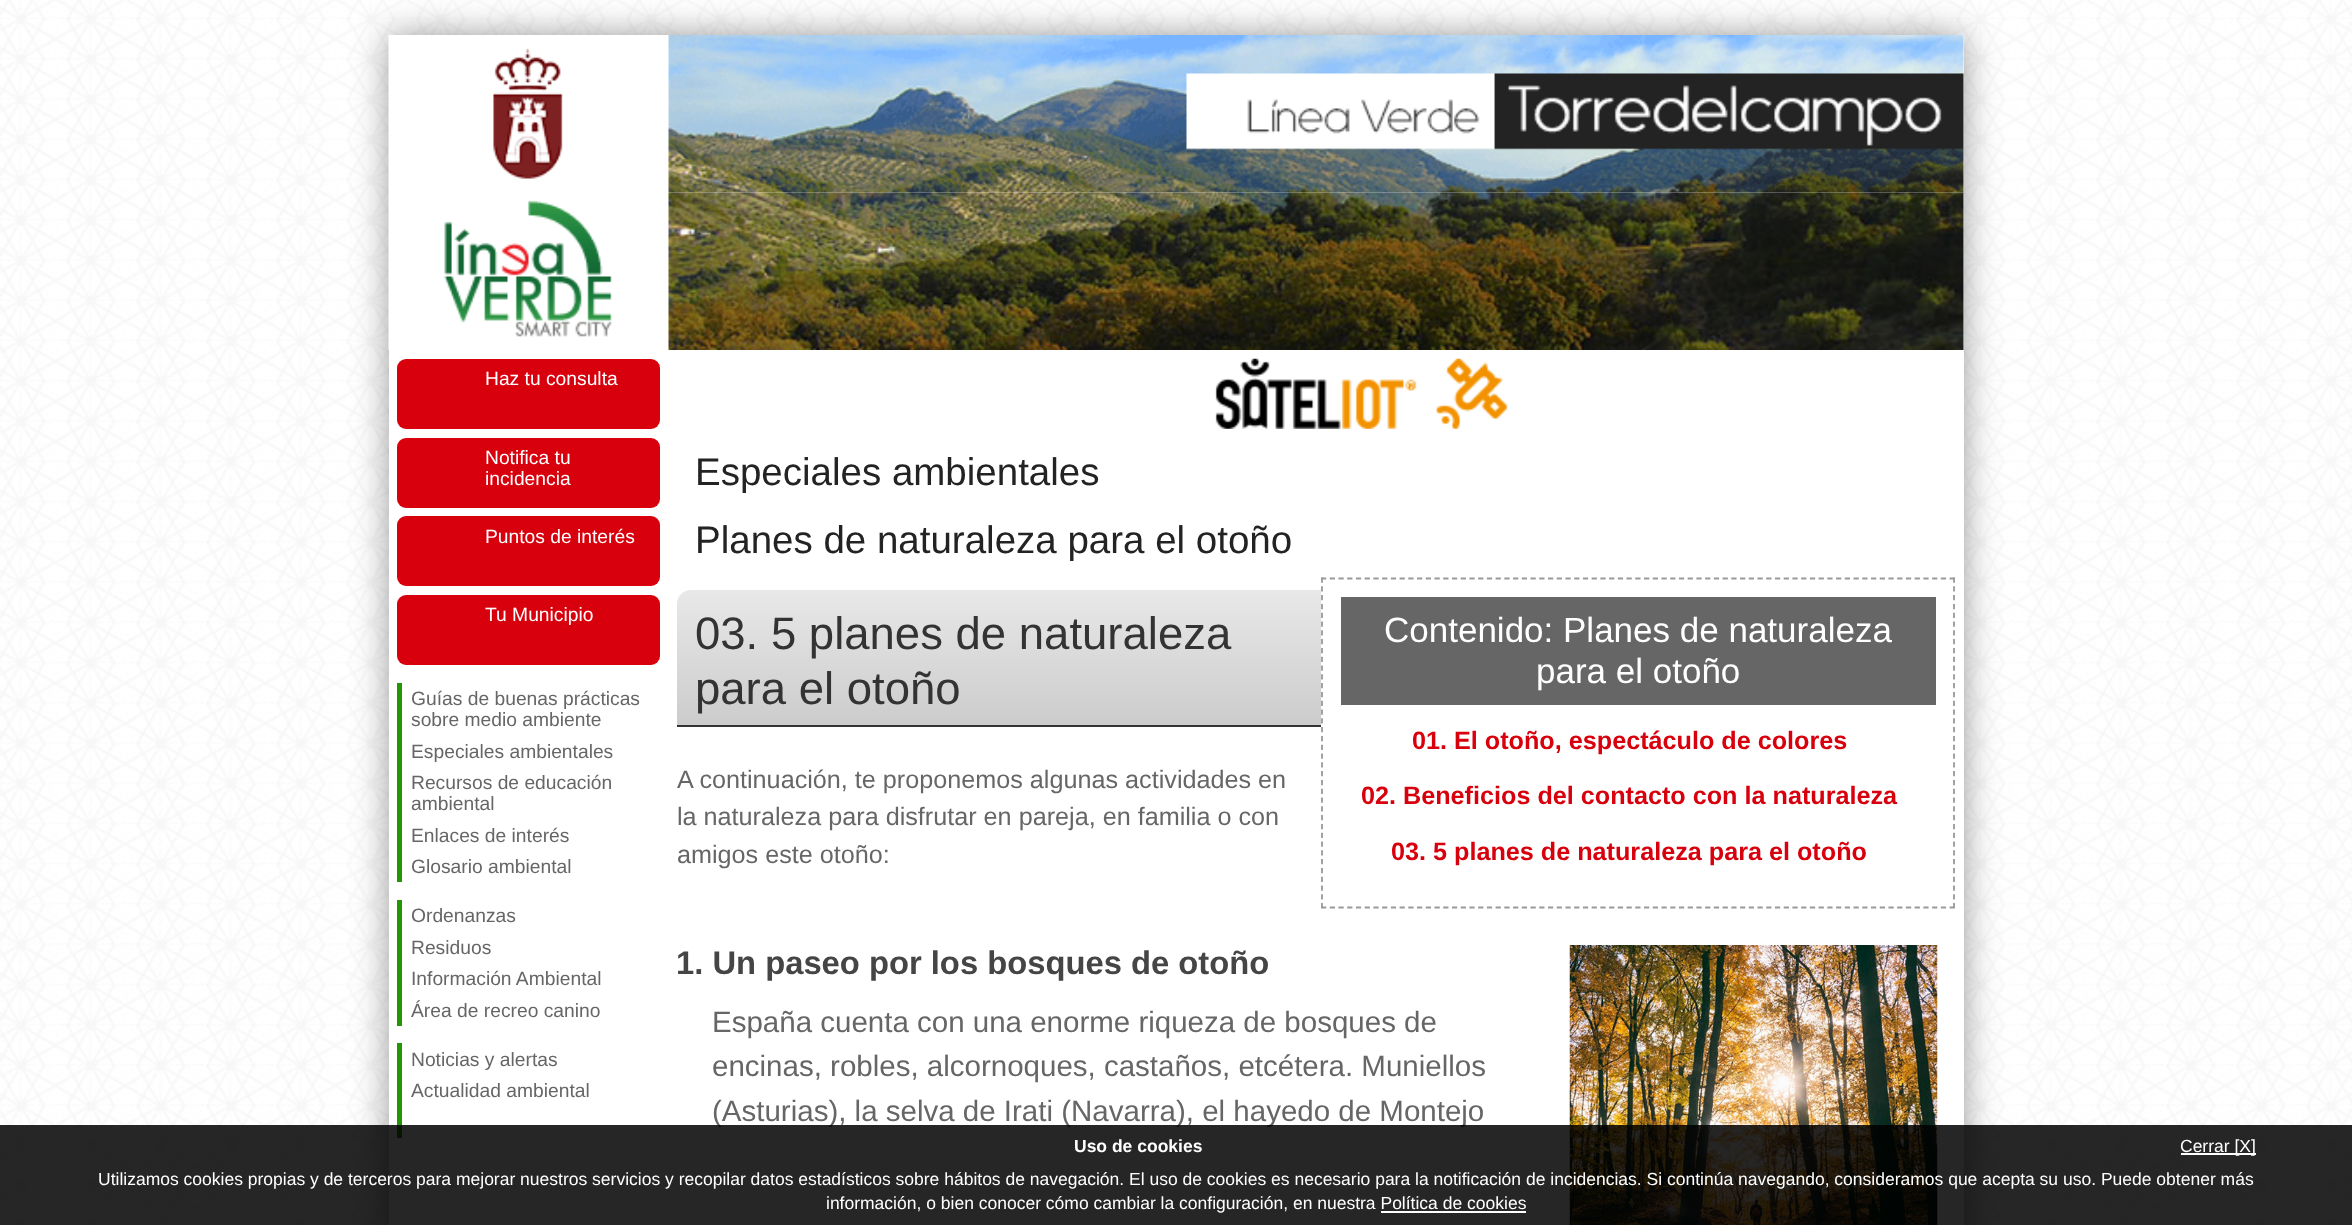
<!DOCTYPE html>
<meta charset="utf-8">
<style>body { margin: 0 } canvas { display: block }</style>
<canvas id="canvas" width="2352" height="1225"></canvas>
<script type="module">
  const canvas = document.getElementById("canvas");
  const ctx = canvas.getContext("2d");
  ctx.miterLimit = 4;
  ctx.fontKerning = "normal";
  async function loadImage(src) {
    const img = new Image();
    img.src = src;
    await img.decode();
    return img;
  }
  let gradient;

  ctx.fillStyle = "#ffffff";
  ctx.fillRect(0, 0, 2352, 1225);
  ctx.drawImage(await loadImage("img1.png"), 0, 0, 2352, 1225);
  ctx.fillStyle = "rgba(0, 0, 0, 0.4)";
  ctx.filter = "blur(17.5px)";
  ctx.beginPath();
  ctx.rect(389, 35, 1575, 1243);
  ctx.fill();
  ctx.filter = "none";
  ctx.fillStyle = "#ffffff";
  ctx.fillRect(389, 35, 1575, 1190);
  ctx.drawImage(await loadImage("img2.png"), 388, 35, 1576, 158);
  ctx.drawImage(await loadImage("img3.png"), 388, 192, 281, 158);
  ctx.drawImage(await loadImage("img4.png"), 668, 192, 1296, 158);
  ctx.drawImage(await loadImage("img5.png"), 1215, 358, 293, 71);
  ctx.fillStyle = "#d8000c";
  ctx.beginPath();
  ctx.roundRect(397, 359, 263, 70, 9);
  ctx.fill();
  ctx.font = "19.25px Liberation Sans";
  ctx.fillStyle = "#ffffff";
  ctx.fillText("Haz tu consulta", 485, 385);
  ctx.fillStyle = "#d8000c";
  ctx.beginPath();
  ctx.roundRect(397, 438, 263, 70, 9);
  ctx.fill();
  ctx.fillStyle = "#ffffff";
  ctx.fillText("Notifica tu", 485, 464);
  ctx.fillText("incidencia", 485, 485);
  ctx.fillStyle = "#d8000c";
  ctx.beginPath();
  ctx.roundRect(397, 516, 263, 70, 9);
  ctx.fill();
  ctx.fillStyle = "#ffffff";
  ctx.fillText("Puntos de interés", 485, 543);
  ctx.fillStyle = "#d8000c";
  ctx.beginPath();
  ctx.roundRect(397, 595, 263, 70, 9);
  ctx.fill();
  ctx.fillStyle = "#ffffff";
  ctx.fillText("Tu Municipio", 485, 621);
  ctx.fillStyle = "#259603";
  ctx.fillRect(397, 683, 5, 199);
  ctx.fillStyle = "#666666";
  ctx.fillText("Guías de buenas prácticas", 411, 705);
  ctx.fillText("sobre medio ambiente", 411, 726);
  ctx.fillText("Especiales ambientales", 411, 758);
  ctx.fillText("Recursos de educación", 411, 789);
  ctx.fillText("ambiental", 411, 810);
  ctx.fillText("Enlaces de interés", 411, 842);
  ctx.fillText("Glosario ambiental", 411, 873);
  ctx.fillStyle = "#259603";
  ctx.fillRect(397, 900, 5, 126);
  ctx.fillStyle = "#666666";
  ctx.fillText("Ordenanzas", 411, 922);
  ctx.fillText("Residuos", 411, 954);
  ctx.fillText("Información Ambiental", 411, 985);
  ctx.fillText("Área de recreo canino", 411, 1017);
  ctx.fillStyle = "#259603";
  ctx.fillRect(397, 1043, 5, 95);
  ctx.fillStyle = "#666666";
  ctx.fillText("Noticias y alertas", 411, 1066);
  ctx.fillText("Actualidad ambiental", 411, 1097);
  ctx.font = "38.5px Liberation Sans";
  ctx.fillStyle = "#242323";
  ctx.fillText("Especiales ambientales", 695, 485);
  ctx.fillText("Planes de naturaleza para el otoño", 695, 553);
  gradient = ctx.createLinearGradient(1316, 590, 1316, 725);
  gradient.addColorStop(0, "#e8e8e8");
  gradient.addColorStop(1, "#cccccc");
  ctx.fillStyle = gradient;
  ctx.beginPath();
  ctx.roundRect(677, 590, 1278, 135, [14, 14, 0, 0]);
  ctx.fill();
  ctx.fillStyle = "#333333";
  ctx.fillRect(677, 725, 644, 2);
  ctx.font = "45.5px Liberation Sans";
  ctx.fillText("03. 5 planes de naturaleza", 695, 649);
  ctx.fillText("para el otoño", 695, 704);
  ctx.fillStyle = "#ffffff";
  ctx.fillRect(1321, 590, 634, 135);
  ctx.beginPath();
  ctx.moveTo(1321, 578.5);
  ctx.lineTo(1955, 578.5);
  ctx.strokeStyle = "#999999";
  ctx.lineWidth = 1.8;
  ctx.setLineDash([5.25, 3.48]);
  ctx.stroke();
  ctx.beginPath();
  ctx.moveTo(1954, 577.5);
  ctx.lineTo(1954, 908);
  ctx.setLineDash([5.25, 3.55]);
  ctx.stroke();
  ctx.beginPath();
  ctx.moveTo(1321, 907.5);
  ctx.lineTo(1955, 907.5);
  ctx.setLineDash([5.25, 3.48]);
  ctx.stroke();
  ctx.beginPath();
  ctx.moveTo(1322, 577.5);
  ctx.lineTo(1322, 908);
  ctx.setLineDash([5.25, 3.55]);
  ctx.stroke();
  ctx.fillStyle = "#666666";
  ctx.fillRect(1341, 597, 595, 108);
  ctx.font = "35px Liberation Sans";
  ctx.fillStyle = "#ffffff";
  ctx.fillText("Contenido: Planes de naturaleza", 1384, 642);
  ctx.fillText("para el otoño", 1536, 683);
  ctx.font = "bold 25.2px Liberation Sans";
  ctx.fillStyle = "#d8000c";
  ctx.fillText("01. El otoño, espectáculo de colores", 1412, 749);
  ctx.fillText("02. Beneficios del contacto con la naturaleza", 1361, 804);
  ctx.fillText("03. 5 planes de naturaleza para el otoño", 1391, 860);
  ctx.font = "25.2px Liberation Sans";
  ctx.fillStyle = "#666666";
  ctx.fillText("A continuación, te proponemos algunas actividades en", 677, 788);
  ctx.fillText("la naturaleza para disfrutar en pareja, en familia o con", 677, 825);
  ctx.fillText("amigos este otoño:", 677, 863);
  ctx.font = "bold 32.75px Liberation Sans";
  ctx.fillStyle = "#454545";
  ctx.fillText("1. Un paseo por los bosques de otoño", 676, 974);
  ctx.drawImage(await loadImage("img6.png"), 1569, 945, 369, 280);
  ctx.font = "29.5px Liberation Sans";
  ctx.fillStyle = "#666666";
  ctx.fillText("España cuenta con una enorme riqueza de bosques de", 712, 1032);
  ctx.fillText("encinas, robles, alcornoques, castaños, etcétera. Muniellos", 712, 1076);
  ctx.fillText("(Asturias), la selva de Irati (Navarra), el hayedo de Montejo", 712, 1121);
  ctx.fillStyle = "rgba(0, 0, 0, 0.85)";
  ctx.fillRect(0, 1125, 2352, 100);
  ctx.font = "bold 17.5px Liberation Sans";
  ctx.fillStyle = "#ffffff";
  ctx.fillText("Uso de cookies", 1074, 1152);
  ctx.fillRect(2181, 1153, 75, 2);
  ctx.font = "17.5px Liberation Sans";
  ctx.fillText("Cerrar [X]", 2180, 1152);
  ctx.fillText("Utilizamos cookies propias y de terceros para mejorar nuestros servicios y recopilar datos estadísticos sobre hábitos de navegación. El uso de cookies es necesario para la notificación de incidencias. Si continúa navegando, consideramos que acepta su uso. Puede obtener más", 98, 1185);
  ctx.fillText("información, o bien conocer cómo cambiar la configuración, en nuestra Política de cookies", 826, 1209);
  ctx.fillRect(1381, 1211, 145, 2);
</script>
